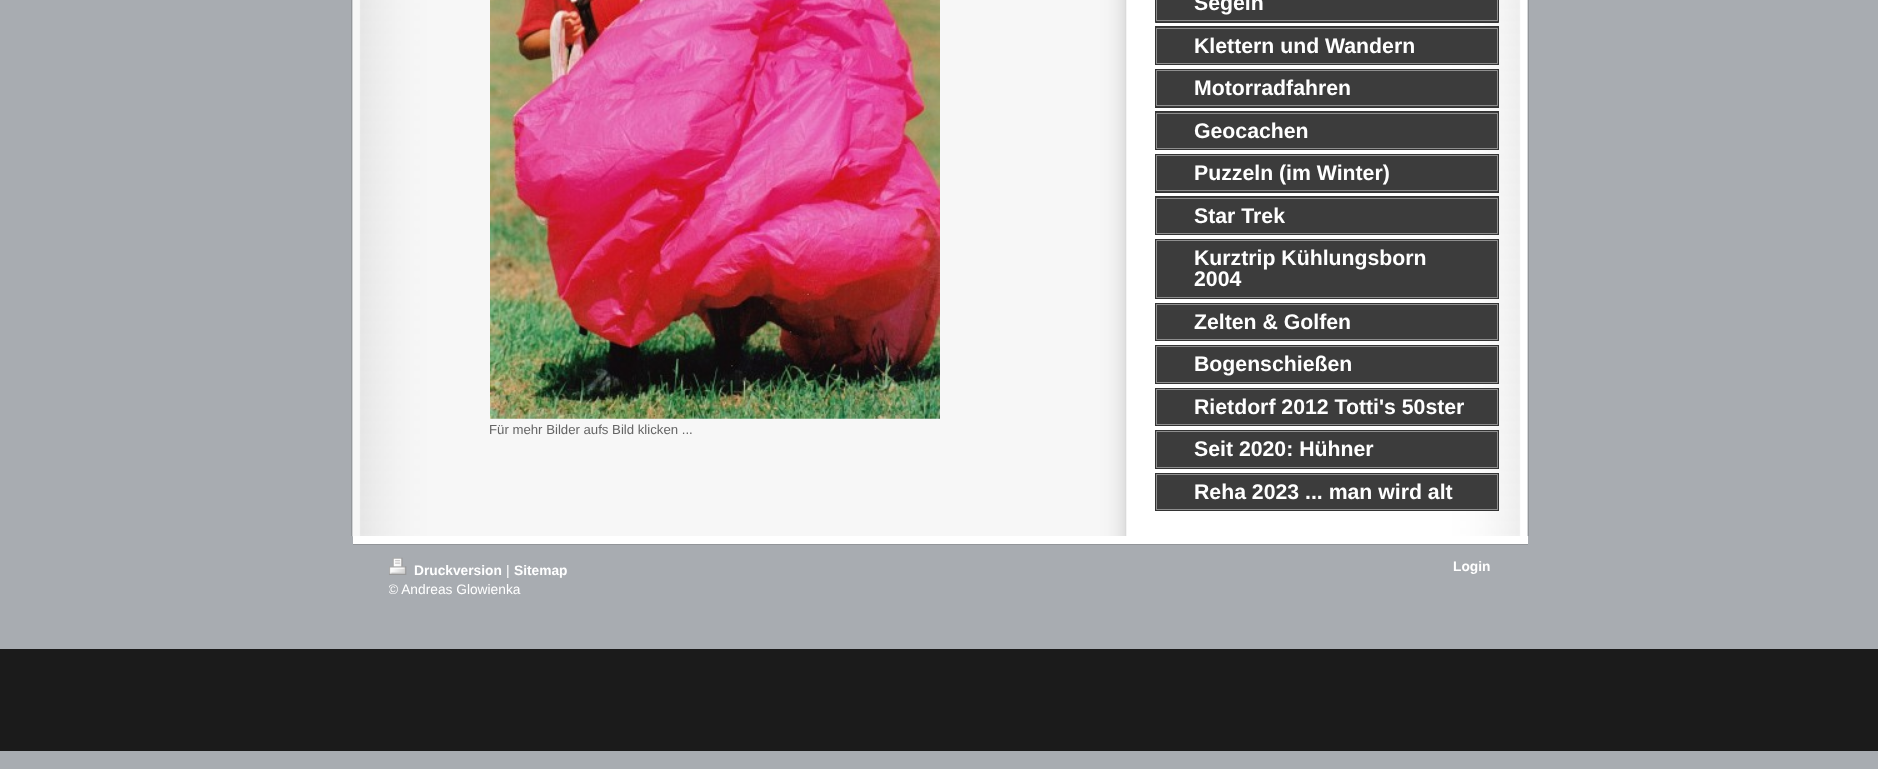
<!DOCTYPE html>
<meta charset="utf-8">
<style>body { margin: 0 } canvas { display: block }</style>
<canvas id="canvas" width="1878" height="769"></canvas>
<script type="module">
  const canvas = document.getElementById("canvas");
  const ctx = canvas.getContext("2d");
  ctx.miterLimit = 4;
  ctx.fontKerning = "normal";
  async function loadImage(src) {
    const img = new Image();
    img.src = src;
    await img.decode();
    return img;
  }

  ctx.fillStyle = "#a8acb1";
  ctx.fillRect(0, 0, 1878, 769);
  ctx.drawImage(await loadImage("img1.png"), 352, 0, 1176, 537);
  ctx.fillStyle = "#929599";
  ctx.fillRect(1528, 0, 1, 536);
  ctx.fillRect(351, 0, 1, 536);
  ctx.drawImage(await loadImage("img2.png"), 490, 0, 450, 419);
  ctx.font = "13.2px Liberation Sans";
  ctx.fillStyle = "#646464";
  ctx.fillText("Für mehr Bilder aufs Bild klicken ...", 489, 434);
  ctx.fillStyle = "#3c3c3c";
  ctx.beginPath();
  ctx.rect(1155.5, -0.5, 343, 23);
  ctx.fill();
  ctx.strokeStyle = "#333333";
  ctx.stroke();
  ctx.strokeStyle = "#8e8e8e";
  ctx.strokeRect(1156.5, -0.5, 341, 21);
  ctx.font = "bold 21.25px Liberation Sans";
  ctx.fillStyle = "#ffffff";
  ctx.fillText("Segeln", 1194, 10);
  ctx.fillStyle = "#3c3c3c";
  ctx.fillRect(1156, 27, 342, 36);
  ctx.strokeStyle = "#333333";
  ctx.strokeRect(1155.5, 26.5, 343, 38);
  ctx.strokeStyle = "#8e8e8e";
  ctx.strokeRect(1156.5, 28.5, 341, 35);
  ctx.fillStyle = "#ffffff";
  ctx.fillText("Klettern und Wandern", 1194, 53);
  ctx.fillStyle = "#3c3c3c";
  ctx.fillRect(1156, 71, 342, 36);
  ctx.strokeStyle = "#333333";
  ctx.strokeRect(1155.5, 69.5, 343, 38);
  ctx.strokeStyle = "#8e8e8e";
  ctx.strokeRect(1156.5, 70.5, 341, 35);
  ctx.fillStyle = "#ffffff";
  ctx.fillText("Motorradfahren", 1194, 95);
  ctx.fillStyle = "#3c3c3c";
  ctx.fillRect(1156, 112, 342, 36);
  ctx.strokeStyle = "#333333";
  ctx.strokeRect(1155.5, 111.5, 343, 38);
  ctx.strokeStyle = "#8e8e8e";
  ctx.strokeRect(1156.5, 113.5, 341, 35);
  ctx.fillStyle = "#ffffff";
  ctx.fillText("Geocachen", 1194, 138);
  ctx.fillStyle = "#3c3c3c";
  ctx.fillRect(1156, 156, 342, 36);
  ctx.strokeStyle = "#333333";
  ctx.strokeRect(1155.5, 154.5, 343, 38);
  ctx.strokeStyle = "#8e8e8e";
  ctx.strokeRect(1156.5, 155.5, 341, 35);
  ctx.fillStyle = "#ffffff";
  ctx.fillText("Puzzeln (im Winter)", 1194, 180);
  ctx.fillStyle = "#3c3c3c";
  ctx.fillRect(1156, 197, 342, 36);
  ctx.strokeStyle = "#333333";
  ctx.strokeRect(1155.5, 196.5, 343, 38);
  ctx.strokeStyle = "#8e8e8e";
  ctx.strokeRect(1156.5, 198.5, 341, 35);
  ctx.fillStyle = "#ffffff";
  ctx.fillText("Star Trek", 1194, 223);
  ctx.fillStyle = "#3c3c3c";
  ctx.fillRect(1157, 241, 340, 56);
  ctx.strokeStyle = "#333333";
  ctx.strokeRect(1155.5, 239.5, 343, 59);
  ctx.strokeStyle = "#8e8e8e";
  ctx.strokeRect(1156.5, 240.5, 341, 57);
  ctx.fillStyle = "#ffffff";
  ctx.fillText("Kurztrip Kühlungsborn", 1194, 265);
  ctx.fillText("2004", 1194, 286);
  ctx.fillStyle = "#3c3c3c";
  ctx.fillRect(1157, 305, 340, 34);
  ctx.strokeStyle = "#333333";
  ctx.strokeRect(1155.5, 303.5, 343, 37);
  ctx.strokeStyle = "#8e8e8e";
  ctx.strokeRect(1156.5, 304.5, 341, 35);
  ctx.fillStyle = "#ffffff";
  ctx.fillText("Zelten & Golfen", 1194, 329);
  ctx.fillStyle = "#3c3c3c";
  ctx.fillRect(1157, 347, 340, 35);
  ctx.strokeStyle = "#333333";
  ctx.strokeRect(1155.5, 345.5, 343, 38);
  ctx.strokeStyle = "#8e8e8e";
  ctx.strokeRect(1156.5, 346.5, 341, 36);
  ctx.fillStyle = "#ffffff";
  ctx.fillText("Bogenschießen", 1194, 371);
  ctx.fillStyle = "#3c3c3c";
  ctx.fillRect(1157, 390, 340, 34);
  ctx.strokeStyle = "#333333";
  ctx.strokeRect(1155.5, 388.5, 343, 37);
  ctx.strokeStyle = "#8e8e8e";
  ctx.strokeRect(1156.5, 389.5, 341, 35);
  ctx.fillStyle = "#ffffff";
  ctx.fillText("Rietdorf 2012 Totti's 50ster", 1194, 414);
  ctx.fillStyle = "#3c3c3c";
  ctx.fillRect(1157, 432, 340, 35);
  ctx.strokeStyle = "#333333";
  ctx.strokeRect(1155.5, 430.5, 343, 38);
  ctx.strokeStyle = "#8e8e8e";
  ctx.strokeRect(1156.5, 431.5, 341, 36);
  ctx.fillStyle = "#ffffff";
  ctx.fillText("Seit 2020: Hühner", 1194, 456);
  ctx.fillStyle = "#3c3c3c";
  ctx.fillRect(1157, 475, 340, 34);
  ctx.strokeStyle = "#333333";
  ctx.strokeRect(1155.5, 473.5, 343, 37);
  ctx.strokeStyle = "#8e8e8e";
  ctx.strokeRect(1156.5, 474.5, 341, 35);
  ctx.fillStyle = "#ffffff";
  ctx.fillText("Reha 2023 ... man wird alt", 1194, 499);
  ctx.fillStyle = "#1b1b1b";
  ctx.fillRect(0, 649, 1878, 102);
  ctx.fillStyle = "#ffffff";
  ctx.fillRect(353, 536, 1175, 8);
  ctx.fillStyle = "#929599";
  ctx.fillRect(353, 544, 1175, 1);
  ctx.drawImage(await loadImage("img3.png"), 389, 557, 18, 18);
  ctx.font = "bold 13.75px Liberation Sans";
  ctx.fillStyle = "#ffffff";
  ctx.fillText("Druckversion", 414, 575);
  ctx.font = "13.75px Liberation Sans";
  ctx.fillText("|", 506, 575);
  ctx.font = "bold 13.75px Liberation Sans";
  ctx.fillText("Sitemap", 514, 575);
  ctx.save();
  ctx.beginPath();
  ctx.rect(389, 558, 1102, 42);
  ctx.clip();
  ctx.font = "13.75px Liberation Sans";
  ctx.fillText("© Andreas Glowienka", 388, 594);
  ctx.restore();
  ctx.fillText("Login", 1453, 571);
</script>
